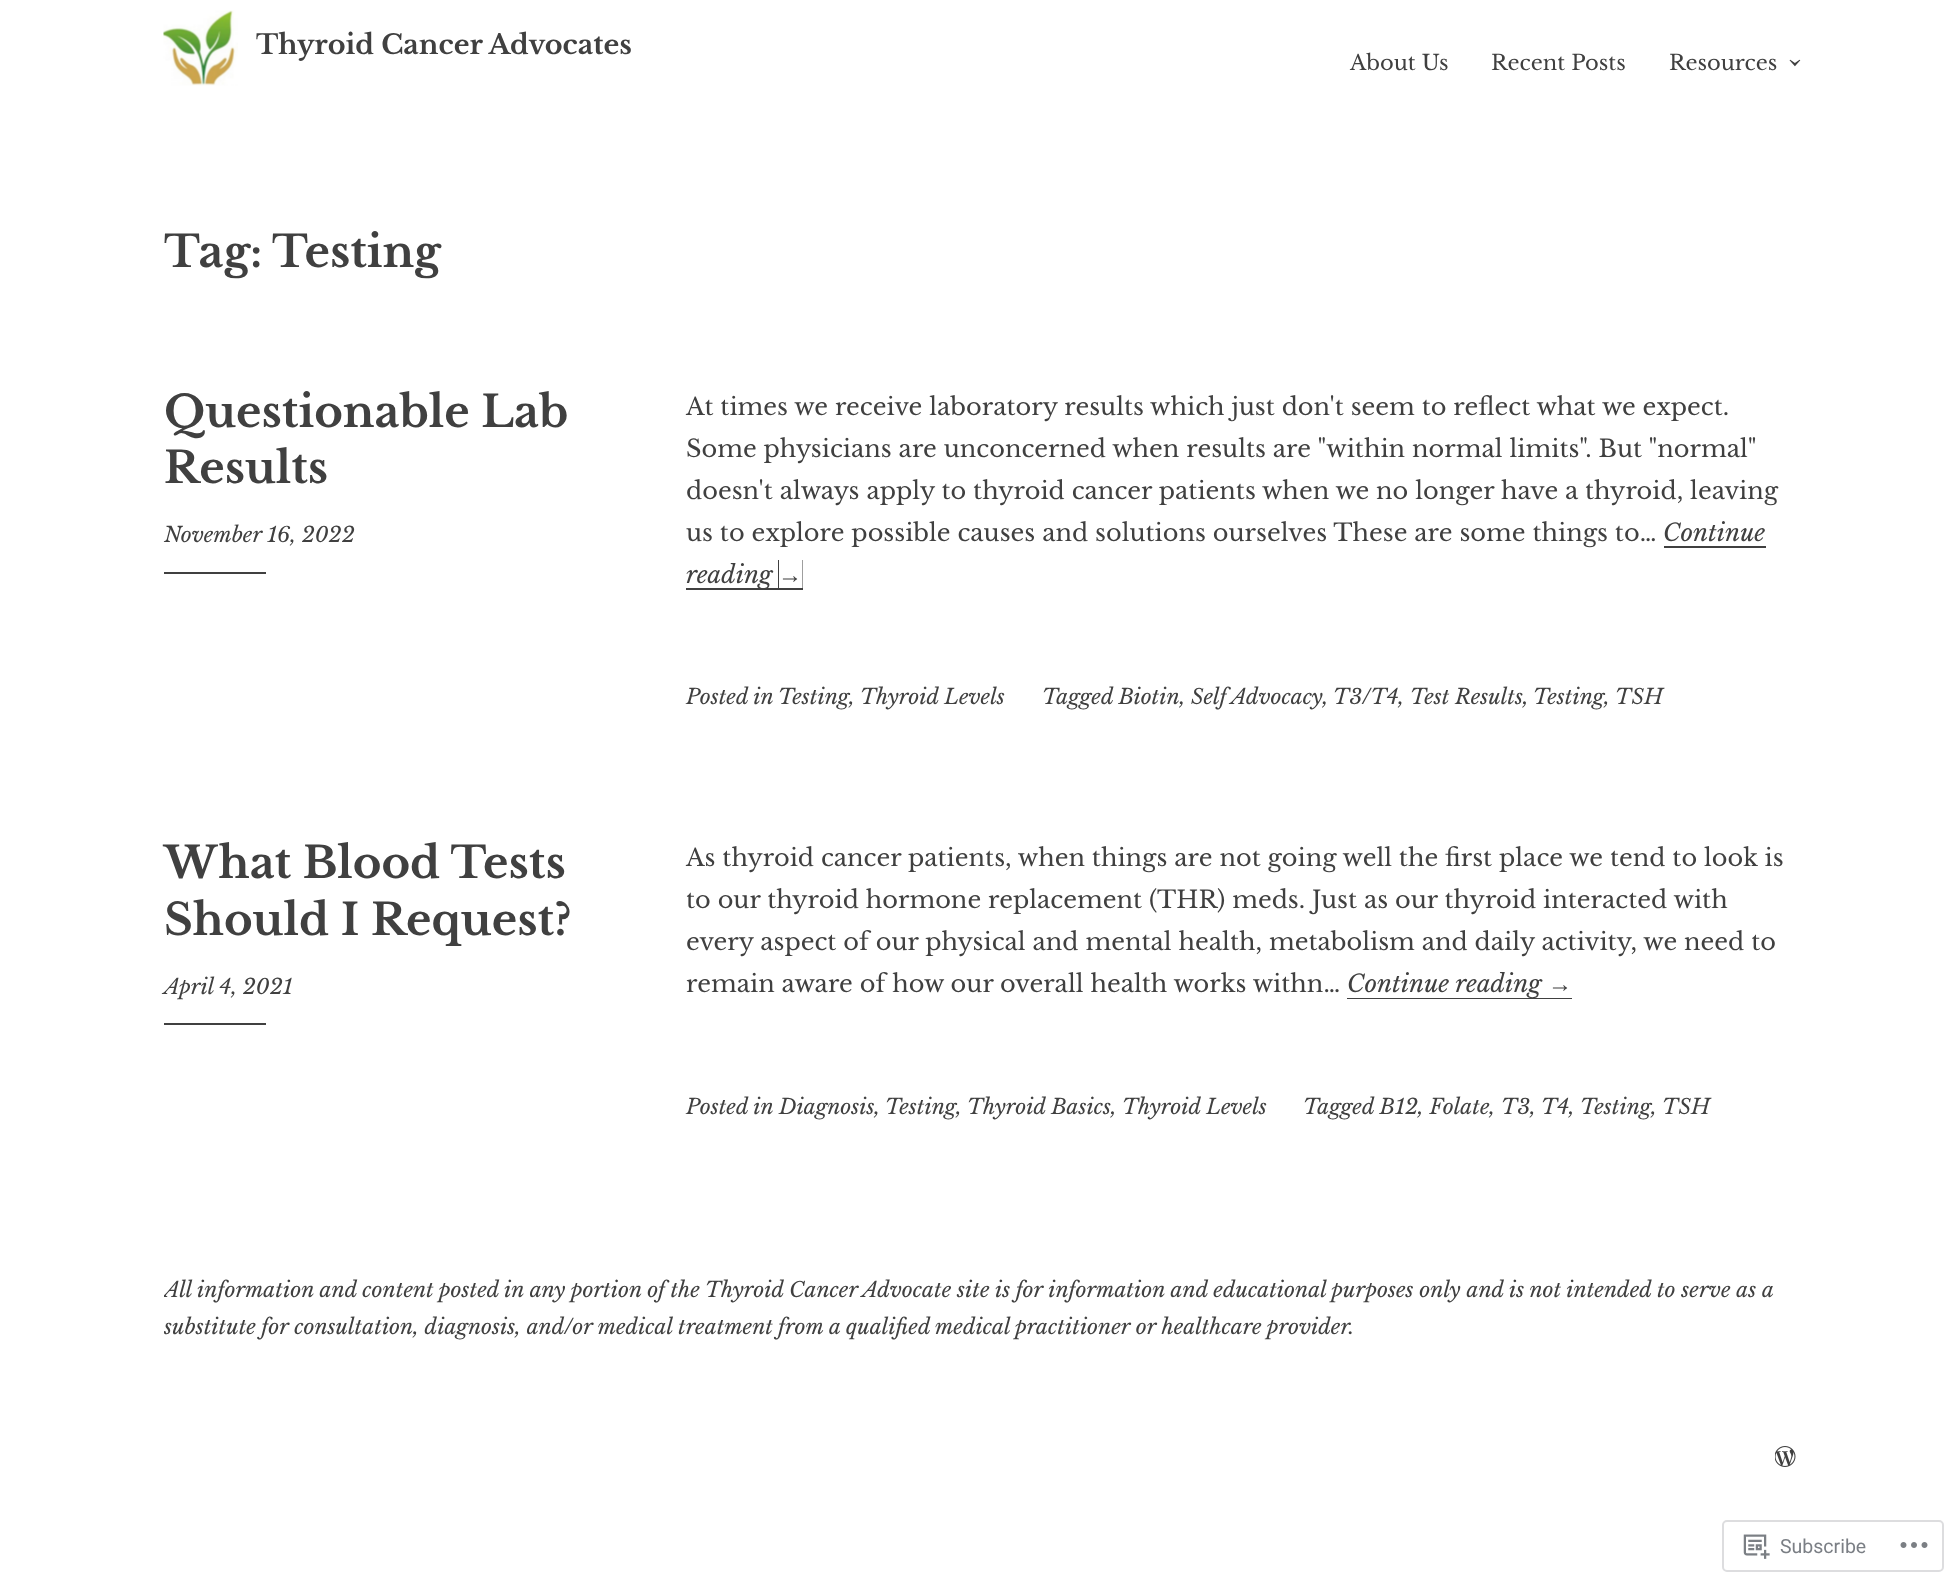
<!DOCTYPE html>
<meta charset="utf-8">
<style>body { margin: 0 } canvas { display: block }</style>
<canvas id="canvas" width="1958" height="1587"></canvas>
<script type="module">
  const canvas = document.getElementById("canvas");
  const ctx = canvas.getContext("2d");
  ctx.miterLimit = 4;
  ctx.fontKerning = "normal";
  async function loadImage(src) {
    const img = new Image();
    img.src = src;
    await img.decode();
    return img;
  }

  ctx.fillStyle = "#ffffff";
  ctx.fillRect(0, 0, 1958, 1587);
  ctx.drawImage(await loadImage("img1.png"), 163, 10, 75, 76);
  ctx.font = "bold 27px Libre Baskerville";
  ctx.fillStyle = "#404040";
  ctx.fillText("Thyroid Cancer Advocates", 256, 54);
  ctx.font = "21px Libre Baskerville";
  ctx.fillText("About Us", 1350, 70);
  ctx.fillText("Recent Posts", 1491, 70);
  ctx.fillText("Resources", 1669, 70);
  ctx.font = "34px Libre Baskerville";
  ctx.save();
  ctx.translate(1786, 57);
  ctx.rotate(90 * Math.PI / 180);
  ctx.fillText("›", 0, 0);
  ctx.restore();
  ctx.font = "bold 43.5px Libre Baskerville";
  ctx.fillText("Tag:", 164, 267);
  ctx.fillText("Testing", 272, 267);
  ctx.fillText("Questionable Lab", 164, 427);
  ctx.fillText("Results", 164, 483);
  ctx.font = "italic 21px Libre Baskerville";
  ctx.fillText("November 16, 2022", 164, 542);
  ctx.fillRect(164, 572, 102, 2);
  ctx.font = "24px Libre Baskerville";
  ctx.fillText("At times we receive laboratory results which just don't seem to reflect what we expect.", 686, 415);
  ctx.fillText("Some physicians are unconcerned when results are \"within normal limits\". But \"normal\"", 686, 457);
  ctx.fillText("doesn't always apply to thyroid cancer patients when we no longer have a thyroid, leaving", 686, 499);
  ctx.fillText("us to explore possible causes and solutions ourselves These are some things to…", 686, 541);
  ctx.font = "italic 24px Libre Baskerville";
  ctx.fillText("Continue", 1663, 541);
  ctx.beginPath();
  ctx.moveTo(1664, 546);
  ctx.lineTo(1664, 548);
  ctx.lineTo(1766, 548);
  ctx.lineTo(1766, 518);
  ctx.lineTo(1766, 546);
  ctx.closePath();
  ctx.fill();
  ctx.beginPath();
  ctx.moveTo(686, 588);
  ctx.lineTo(686, 590);
  ctx.lineTo(779, 590);
  ctx.lineTo(779, 560);
  ctx.lineTo(778, 560);
  ctx.lineTo(778, 588);
  ctx.closePath();
  ctx.fill();
  ctx.fillText("reading", 686, 583);
  ctx.beginPath();
  ctx.moveTo(779, 588);
  ctx.lineTo(779, 590);
  ctx.lineTo(803, 590);
  ctx.lineTo(803, 560);
  ctx.lineTo(802.5, 560);
  ctx.lineTo(802.5, 588);
  ctx.closePath();
  ctx.fill();
  ctx.font = "italic 24px Liberation Serif";
  ctx.fillText("→", 778, 583);
  ctx.font = "italic 21px Libre Baskerville";
  ctx.fillText("Posted in", 686, 704);
  ctx.fillText("Testing,", 778, 704);
  ctx.fillText("Thyroid Levels", 860, 704);
  ctx.fillText("Tagged Biotin, Self Advocacy,", 1042, 704);
  ctx.fillText("T3/T4,", 1333, 704);
  ctx.fillText("Test Results,", 1410, 704);
  ctx.fillText("Testing,", 1533, 704);
  ctx.fillText("TSH", 1615, 704);
  ctx.font = "bold 43.5px Libre Baskerville";
  ctx.fillText("What Blood Tests", 164, 878);
  ctx.fillText("Should I Request?", 164, 935);
  ctx.font = "italic 21px Libre Baskerville";
  ctx.fillText("April 4, 2021", 164, 994);
  ctx.fillRect(164, 1023, 102, 2);
  ctx.font = "24px Libre Baskerville";
  ctx.fillText("As thyroid cancer patients, when things are not going well the first place we tend to look is", 686, 866);
  ctx.fillText("to our thyroid hormone replacement (THR) meds. Just as our thyroid interacted with", 686, 908);
  ctx.fillText("every aspect of our physical and mental health, metabolism and daily activity, we need to", 686, 950);
  ctx.fillText("remain aware of how our overall health works withn…", 686, 992);
  ctx.fillRect(1347, 998, 225, 1);
  ctx.font = "italic 24px Libre Baskerville";
  ctx.fillText("Continue reading", 1347, 992);
  ctx.font = "italic 24px Liberation Serif";
  ctx.fillText("→", 1548, 992);
  ctx.font = "italic 21px Libre Baskerville";
  ctx.fillText("Posted in Diagnosis,", 686, 1114);
  ctx.fillText("Testing,", 885, 1114);
  ctx.fillText("Thyroid Basics,", 967, 1114);
  ctx.fillText("Thyroid Levels", 1122, 1114);
  ctx.fillText("Tagged B12, Folate,", 1303, 1114);
  ctx.fillText("T3,", 1501, 1114);
  ctx.fillText("T4,", 1541, 1114);
  ctx.fillText("Testing,", 1580, 1114);
  ctx.fillText("TSH", 1662, 1114);
  ctx.save();
  ctx.beginPath();
  ctx.rect(164, 1272, 1632, 95);
  ctx.clip();
  ctx.fillText("All information and content posted in any portion of the Thyroid Cancer Advocate site is for information and educational purposes only and is not intended to serve as a", 164, 1297);
  ctx.fillText("substitute for consultation, diagnosis, and/or medical treatment from a qualified medical practitioner or healthcare provider.", 164, 1334);
  ctx.restore();
  ctx.drawImage(await loadImage("img2.png"), 1775, 1446, 21, 21);
  ctx.beginPath();
  ctx.roundRect(1723, 1521, 220, 50, 4);
  ctx.strokeStyle = "#dddddf";
  ctx.lineWidth = 2;
  ctx.stroke();
  ctx.drawImage(await loadImage("img3.png"), 1743, 1534, 27, 25);
  ctx.font = "19.5px Roboto";
  ctx.fillStyle = "#7b7f85";
  ctx.fillText("Subscribe", 1780, 1553);
  ctx.drawImage(await loadImage("img4.png"), 1900, 1542, 28, 6);
</script>
